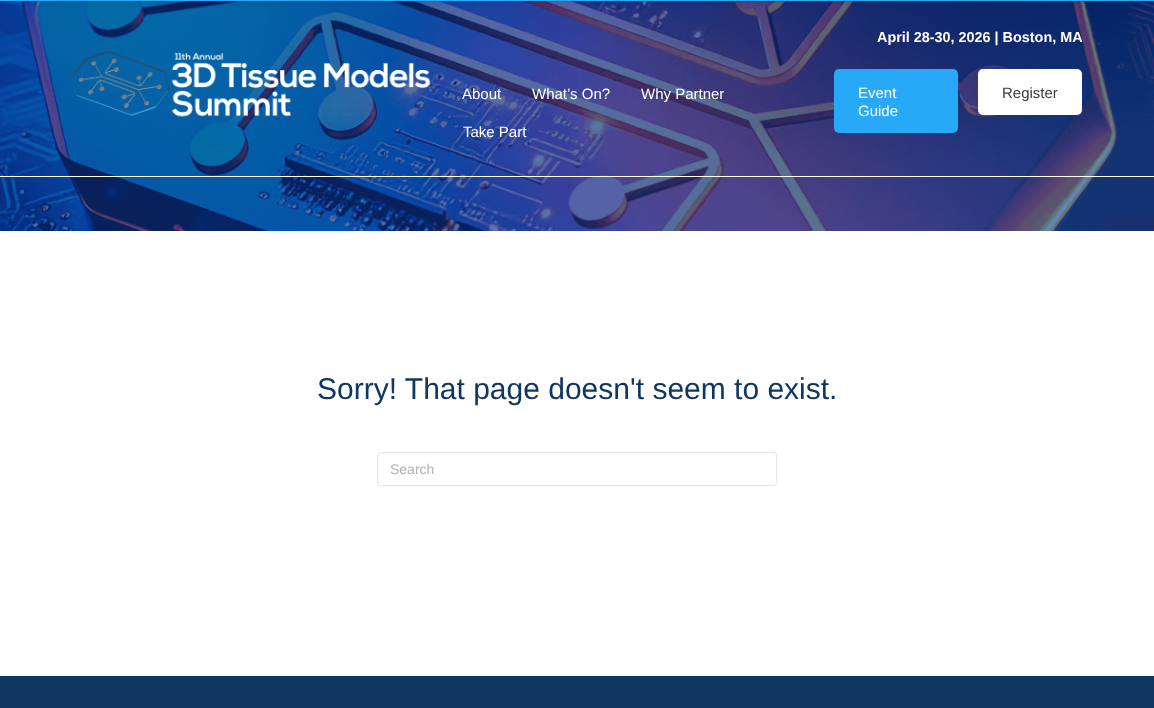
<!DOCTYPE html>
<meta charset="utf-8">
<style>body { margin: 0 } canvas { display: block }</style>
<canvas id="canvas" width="1154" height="708"></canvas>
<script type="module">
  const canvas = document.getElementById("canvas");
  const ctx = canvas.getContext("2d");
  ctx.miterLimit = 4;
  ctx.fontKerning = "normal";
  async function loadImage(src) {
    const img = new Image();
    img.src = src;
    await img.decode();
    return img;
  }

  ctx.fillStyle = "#ffffff";
  ctx.fillRect(0, 0, 1154, 708);
  ctx.drawImage(await loadImage("img1.png"), 0, 1, 1154, 230);
  ctx.fillStyle = "rgba(0, 0, 0, 0.3)";
  ctx.filter = "blur(2.5px)";
  ctx.beginPath();
  ctx.rect(0, 0, 1154, 1);
  ctx.fill();
  ctx.filter = "none";
  ctx.fillStyle = "#27a9f7";
  ctx.fillRect(0, 0, 1154, 1);
  ctx.fillStyle = "#ffffff";
  ctx.fillRect(0, 176, 1154, 1);
  ctx.drawImage(await loadImage("img2.png"), 72, 51, 359, 66);
  ctx.font = "bold 14.4px Liberation Sans";
  ctx.fillText("April 28-30, 2026 | Boston, MA", 877, 42);
  ctx.font = "15px Liberation Sans";
  ctx.fillText("About", 462, 99);
  ctx.fillText("What’s On?", 532, 99);
  ctx.fillText("Why Partner", 641, 99);
  ctx.fillText("Take Part", 463, 137);
  ctx.fillStyle = "#27a9f7";
  ctx.beginPath();
  ctx.roundRect(834, 69, 124, 64, 5);
  ctx.fill();
  ctx.fillStyle = "#ffffff";
  ctx.fillText("Event", 858, 98);
  ctx.fillText("Guide", 858, 116);
  ctx.beginPath();
  ctx.roundRect(978, 69, 104, 46, 5);
  ctx.fill();
  ctx.fillStyle = "#3c3c3b";
  ctx.fillText("Register", 1002, 98);
  ctx.font = "30px Liberation Sans";
  ctx.fillStyle = "#0f3761";
  ctx.fillText("Sorry! That page doesn't seem to exist.", 317, 399);
  ctx.beginPath();
  ctx.roundRect(377.5, 452.5, 399, 33, 3.5);
  ctx.strokeStyle = "#e6e6e6";
  ctx.stroke();
  ctx.font = "14px Liberation Sans";
  ctx.fillStyle = "#b1b1b1";
  ctx.fillText("Search", 390, 474);
  ctx.fillStyle = "#0f3761";
  ctx.fillRect(0, 676, 1154, 32);
</script>
